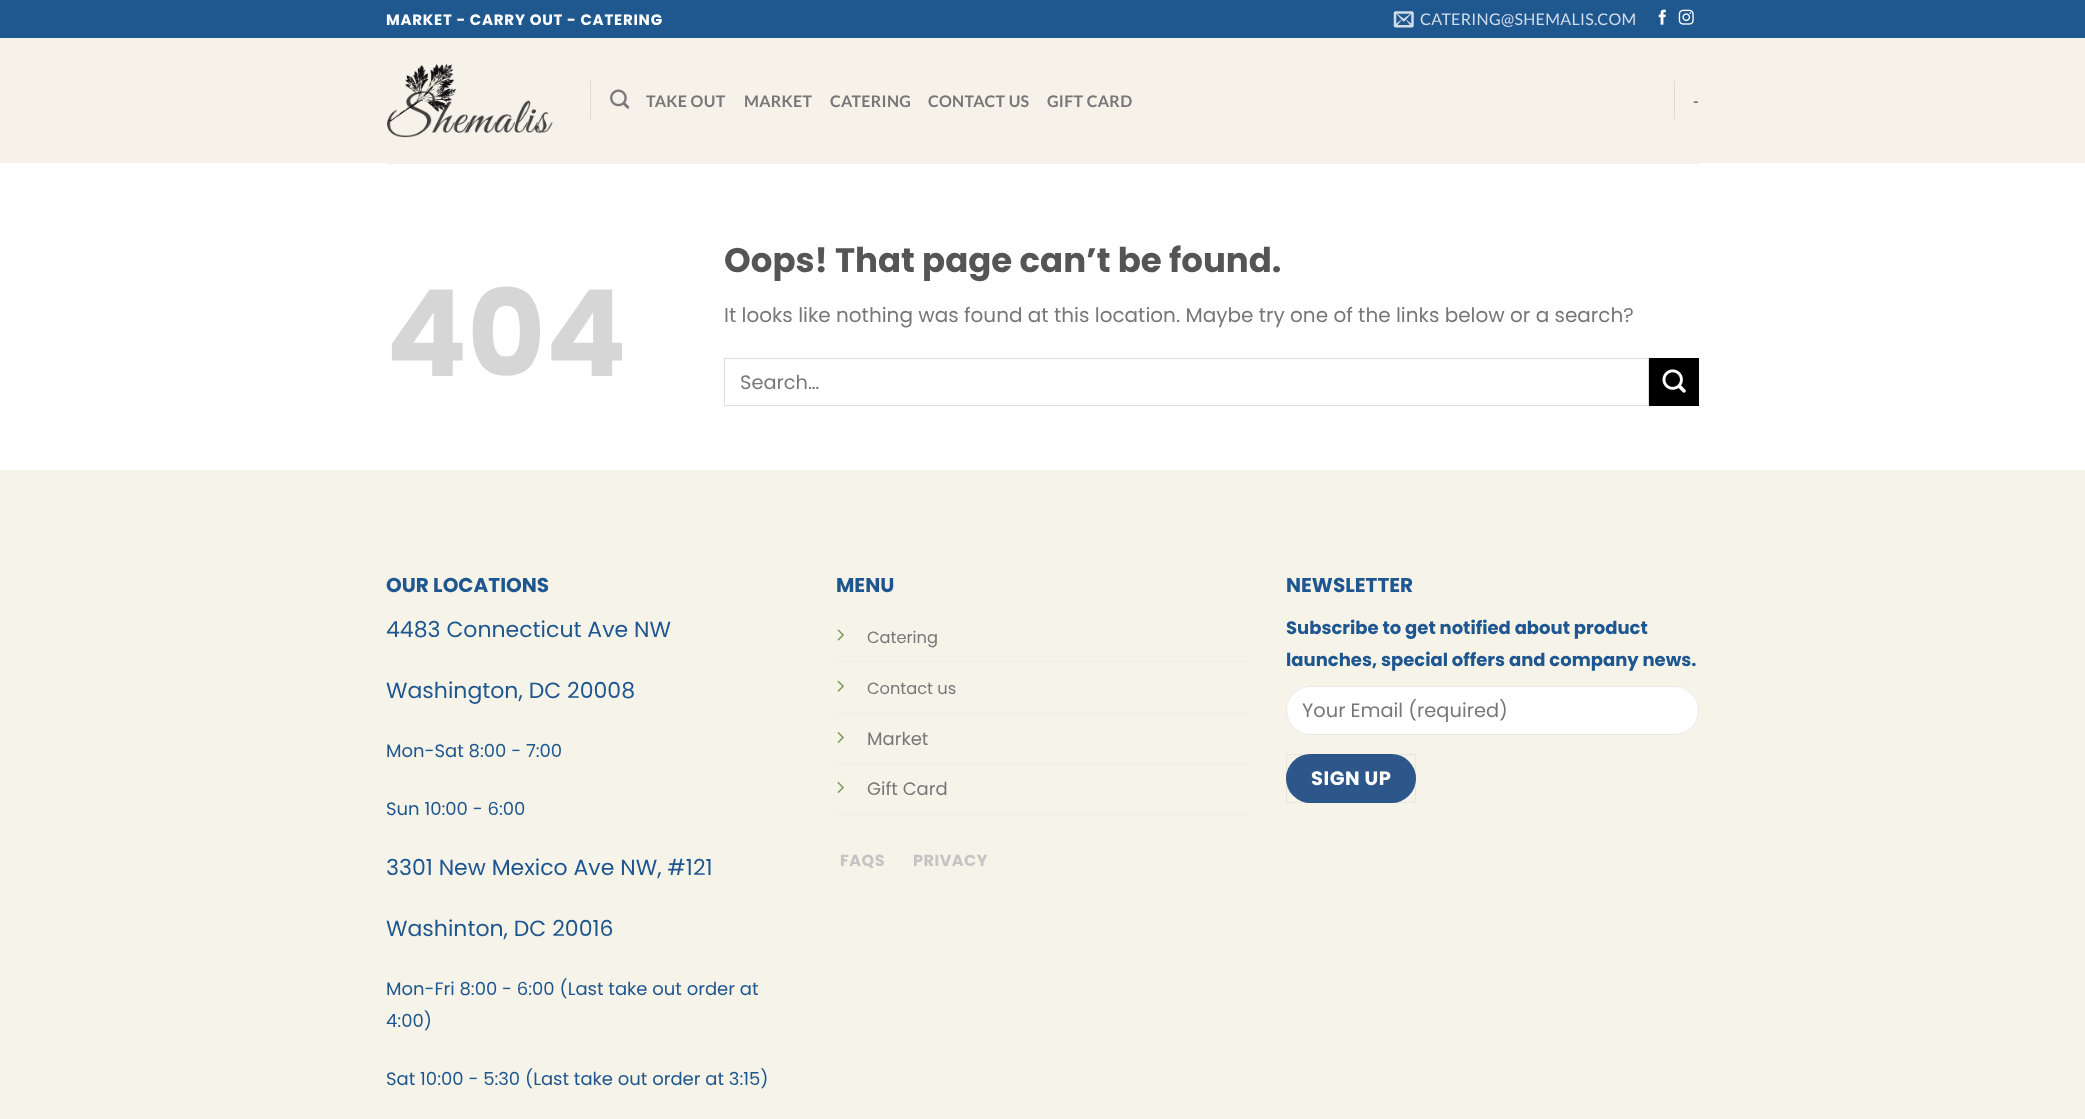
<!DOCTYPE html>
<meta charset="utf-8">
<style>body { margin: 0 } canvas { display: block }</style>
<canvas id="canvas" width="2085" height="1119"></canvas>
<script type="module">
  const canvas = document.getElementById("canvas");
  const ctx = canvas.getContext("2d");
  ctx.miterLimit = 4;
  ctx.fontKerning = "normal";
  async function loadImage(src) {
    const img = new Image();
    img.src = src;
    await img.decode();
    return img;
  }

  ctx.fillStyle = "#ffffff";
  ctx.fillRect(0, 0, 2085, 1119);
  ctx.fillStyle = "#f6f2e9";
  ctx.fillRect(0, 38, 2085, 125);
  ctx.fillStyle = "#1f578f";
  ctx.fillRect(0, 0, 2085, 38);
  ctx.letterSpacing = "0.75px";
  ctx.font = "bold 15px Poppins";
  ctx.fillStyle = "#ffffff";
  ctx.fillText("MARKET - CARRY OUT - CATERING", 386, 25);
  ctx.drawImage(await loadImage("img1.png"), 1393, 11, 21, 17);
  ctx.letterSpacing = "0.3px";
  ctx.font = "16px Lato";
  ctx.fillStyle = "#d2dde9";
  ctx.fillText("CATERING@SHEMALIS.COM", 1420, 25);
  ctx.drawImage(await loadImage("img2.png"), 1658, 9, 8, 16);
  ctx.drawImage(await loadImage("img3.png"), 1678, 9, 16, 16);
  ctx.drawImage(await loadImage("img4.png"), 387, 64, 166, 74);
  ctx.fillStyle = "#dddad2";
  ctx.fillRect(590, 81, 1, 38);
  ctx.drawImage(await loadImage("img5.png"), 610, 89, 20, 20);
  ctx.font = "bold 16px Lato";
  ctx.fillStyle = "#777777";
  ctx.fillText("TAKE OUT", 646, 107);
  ctx.fillText("MARKET", 744, 107);
  ctx.fillText("CATERING", 830, 107);
  ctx.fillText("CONTACT US", 928, 107);
  ctx.fillText("GIFT CARD", 1047, 107);
  ctx.fillStyle = "#dddad2";
  ctx.fillRect(1674, 81, 1, 38);
  ctx.fillStyle = "#777777";
  ctx.fillText("-", 1693, 107);
  ctx.fillStyle = "#f1f1f1";
  ctx.fillRect(386, 163, 1313, 1);
  ctx.letterSpacing = "0px";
  ctx.font = "bold 120px Poppins";
  ctx.fillStyle = "#d6d6d6";
  ctx.fillText("404", 386, 376);
  ctx.font = "bold 34px Poppins";
  ctx.fillStyle = "#555555";
  ctx.fillText("Oops! That page can’t be found.", 724, 272);
  ctx.font = "20px Poppins";
  ctx.fillStyle = "#777777";
  ctx.fillText("It looks like nothing was found at this location. Maybe try one of the links below or a search?", 724, 322);
  ctx.strokeStyle = "#dddddd";
  ctx.strokeRect(724.5, 358.5, 924, 47);
  ctx.font = "19.4px Poppins";
  ctx.fillText("Search…", 740, 389);
  ctx.fillStyle = "#000000";
  ctx.fillRect(1649, 358, 50, 48);
  ctx.drawImage(await loadImage("img6.png"), 1662, 369, 24, 24);
  ctx.fillStyle = "#f6f3e9";
  ctx.fillRect(0, 470, 2085, 649);
  ctx.font = "bold 20px Poppins";
  ctx.fillStyle = "#1e5690";
  ctx.fillText("OUR LOCATIONS", 386, 592);
  ctx.font = "22px Poppins";
  ctx.fillText("4483 Connecticut Ave NW", 386, 637);
  ctx.fillText("Washington, DC 20008", 386, 698);
  ctx.font = "18px Poppins";
  ctx.fillText("Mon-Sat 8:00 - 7:00", 386, 757);
  ctx.fillText("Sun 10:00 - 6:00", 386, 815);
  ctx.font = "22px Poppins";
  ctx.fillText("3301 New Mexico Ave NW, #121", 386, 875);
  ctx.fillText("Washinton, DC 20016", 386, 936);
  ctx.font = "18px Poppins";
  ctx.fillText("Mon-Fri 8:00 - 6:00 (Last take out order at", 386, 995);
  ctx.fillText("4:00)", 386, 1027);
  ctx.fillText("Sat 10:00 - 5:30 (Last take out order at 3:15)", 386, 1085);
  ctx.font = "bold 20px Poppins";
  ctx.fillText("MENU", 836, 592);
  ctx.fillStyle = "#ececec";
  ctx.fillRect(836, 661, 413, 1);
  ctx.drawImage(await loadImage("img7.png"), 837, 629, 7, 12);
  ctx.font = "16.25px Poppins";
  ctx.fillStyle = "#777777";
  ctx.fillText("Catering", 867, 643);
  ctx.fillStyle = "#ececec";
  ctx.fillRect(836, 713, 413, 1);
  ctx.drawImage(await loadImage("img8.png"), 837, 680, 7, 12);
  ctx.fillStyle = "#777777";
  ctx.fillText("Contact us", 867, 694);
  ctx.fillStyle = "#ececec";
  ctx.fillRect(836, 763, 413, 1);
  ctx.drawImage(await loadImage("img9.png"), 837, 732, 7, 11);
  ctx.font = "18px Poppins";
  ctx.fillStyle = "#777777";
  ctx.fillText("Market", 867, 745);
  ctx.fillStyle = "#ececec";
  ctx.fillRect(836, 814, 413, 1);
  ctx.drawImage(await loadImage("img9.png"), 837, 782, 7, 11);
  ctx.fillStyle = "#777777";
  ctx.fillText("Gift Card", 867, 795);
  ctx.letterSpacing = "0.5px";
  ctx.font = "bold 16px Poppins";
  ctx.fillStyle = "#c4c4c4";
  ctx.fillText("FAQS", 840, 866);
  ctx.fillText("PRIVACY", 913, 866);
  ctx.letterSpacing = "0px";
  ctx.font = "bold 20px Poppins";
  ctx.fillStyle = "#1e5690";
  ctx.fillText("NEWSLETTER", 1286, 592);
  ctx.font = "bold 18px Poppins";
  ctx.fillText("Subscribe to get notified about product", 1286, 634);
  ctx.fillText("launches, special offers and company news.", 1286, 666);
  ctx.fillStyle = "#ffffff";
  ctx.beginPath();
  ctx.roundRect(1286, 686, 413, 49, 24.5);
  ctx.fill();
  ctx.beginPath();
  ctx.roundRect(1286.5, 686.5, 412, 48, 24);
  ctx.strokeStyle = "rgba(0, 0, 0, 0.09)";
  ctx.stroke();
  ctx.font = "19.4px Poppins";
  ctx.fillStyle = "#777777";
  ctx.fillText("Your Email (required)", 1302, 717);
  ctx.fillStyle = "#2d568a";
  ctx.beginPath();
  ctx.roundRect(1286, 754, 130, 49, 24.5);
  ctx.fill();
  ctx.strokeStyle = "rgba(0, 0, 0, 0.05)";
  ctx.strokeRect(1286.5, 754.5, 129, 48);
  ctx.letterSpacing = "0.5px";
  ctx.font = "bold 19.4px Poppins";
  ctx.fillStyle = "#ffffff";
  ctx.fillText("SIGN UP", 1311, 785);
</script>
